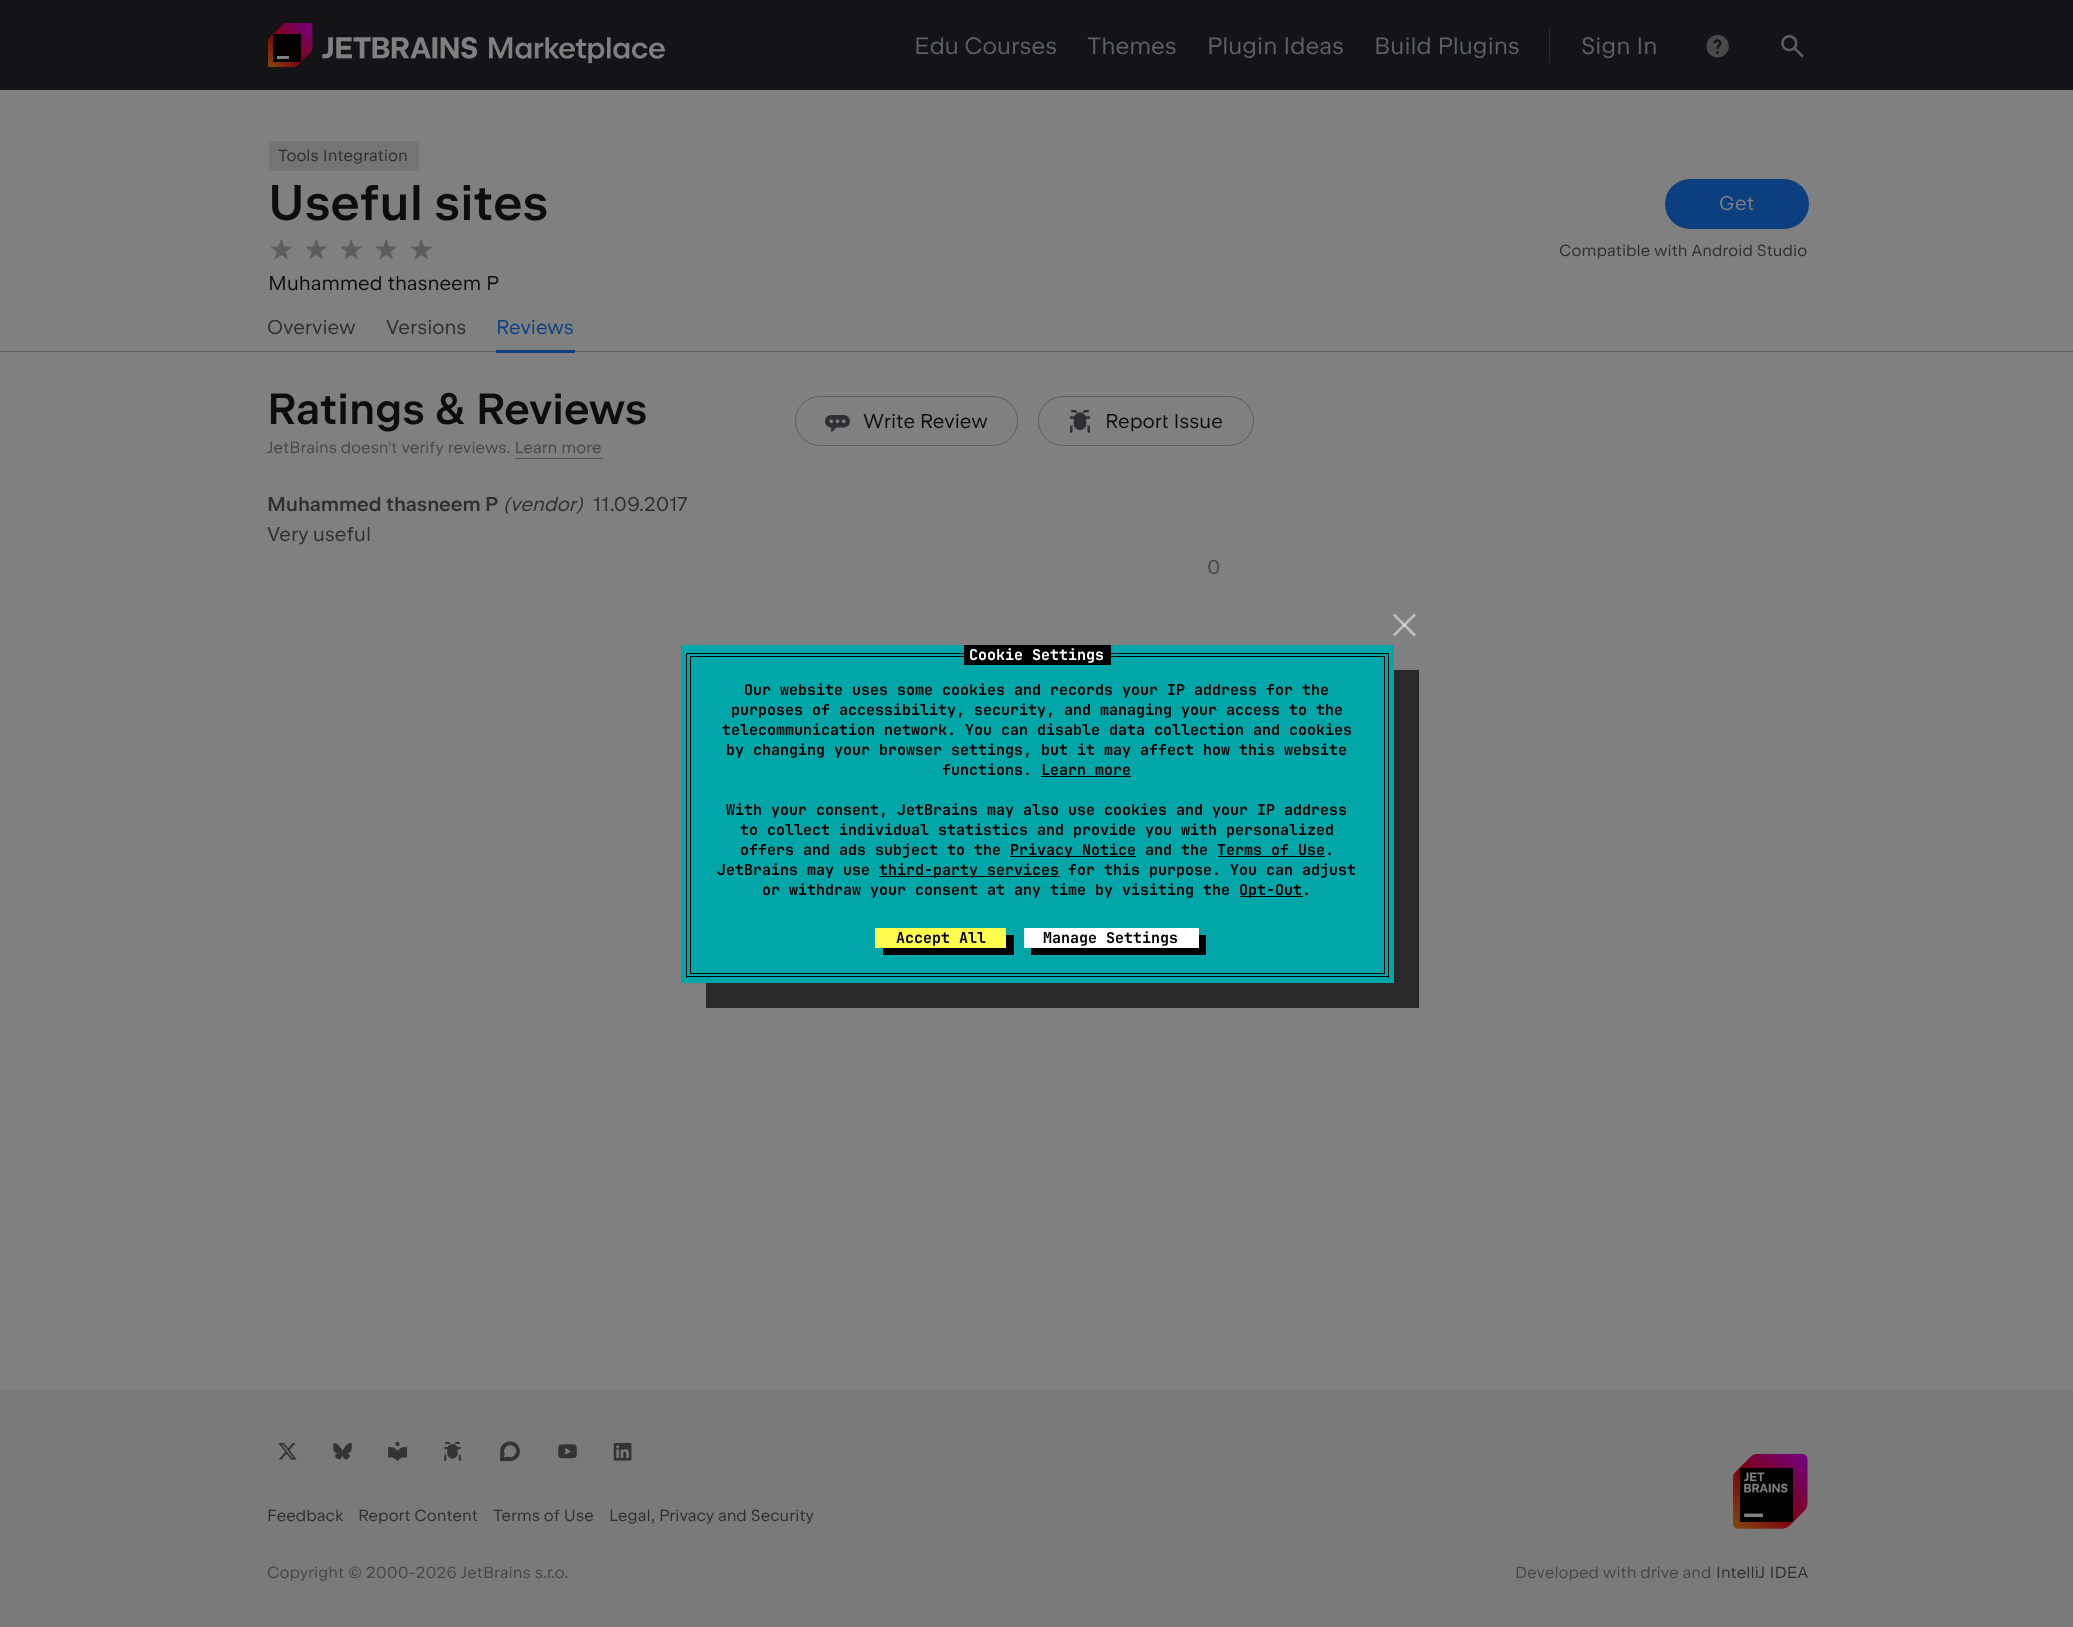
<!DOCTYPE html>
<meta charset="utf-8">
<style>body { margin: 0 } canvas { display: block }</style>
<canvas id="canvas" width="2073" height="1627"></canvas>
<script type="module">
  const canvas = document.getElementById("canvas");
  const ctx = canvas.getContext("2d");
  ctx.miterLimit = 4;
  ctx.fontKerning = "normal";
  async function loadImage(src) {
    const img = new Image();
    img.src = src;
    await img.decode();
    return img;
  }

  ctx.fillStyle = "#808080";
  ctx.fillRect(0, 0, 2073, 1627);
  ctx.fillStyle = "#5d5d5e";
  ctx.fillRect(0, 351, 2073, 1);
  ctx.fillStyle = "#141416";
  ctx.fillRect(0, 0, 2073, 90);
  ctx.drawImage(await loadImage("img1.png"), 268, 23, 397, 44);
  ctx.font = "23.75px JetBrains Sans";
  ctx.fillStyle = "#5f6060";
  ctx.fillText("Edu Courses", 914, 54);
  ctx.fillText("Themes", 1087, 54);
  ctx.fillText("Plugin Ideas", 1207, 54);
  ctx.fillText("Build Plugins", 1374, 54);
  ctx.fillStyle = "#292a2b";
  ctx.fillRect(1549, 29, 1, 34);
  ctx.fillStyle = "#5f6060";
  ctx.fillText("Sign In", 1581, 54);
  ctx.drawImage(await loadImage("img2.png"), 1706, 35, 23, 23);
  ctx.drawImage(await loadImage("img3.png"), 1781, 35, 23, 23);
  ctx.fillStyle = "#747474";
  ctx.beginPath();
  ctx.roundRect(269, 141, 150, 30, 5);
  ctx.fill();
  ctx.letterSpacing = "0.05px";
  ctx.font = "16.25px JetBrains Sans";
  ctx.fillStyle = "#2e2e2f";
  ctx.fillText("Tools Integration", 278, 161);
  ctx.letterSpacing = "0px";
  ctx.font = "500 50px JetBrains Sans";
  ctx.fillStyle = "#0d0d0e";
  ctx.fillText("Useful sites", 268, 220);
  ctx.drawImage(await loadImage("img4.png"), 271, 239, 21, 21);
  ctx.drawImage(await loadImage("img4.png"), 306, 239, 21, 21);
  ctx.drawImage(await loadImage("img4.png"), 341, 239, 21, 21);
  ctx.drawImage(await loadImage("img4.png"), 376, 239, 21, 21);
  ctx.drawImage(await loadImage("img4.png"), 411, 239, 21, 21);
  ctx.font = "20px JetBrains Sans";
  ctx.fillText("Muhammed thasneem P", 268, 290);
  ctx.fillStyle = "#0b3f80";
  ctx.beginPath();
  ctx.roundRect(1665, 179, 144, 50, 25);
  ctx.fill();
  ctx.fillStyle = "#808080";
  ctx.fillText("Get", 1719, 210);
  ctx.letterSpacing = "0.05px";
  ctx.font = "16.25px JetBrains Sans";
  ctx.fillStyle = "#2e2e2f";
  ctx.fillText("Compatible with Android Studio", 1559, 256);
  ctx.letterSpacing = "0px";
  ctx.font = "20px JetBrains Sans";
  ctx.fillText("Overview", 267, 334);
  ctx.fillText("Versions", 386, 334);
  ctx.fillStyle = "#0b3f80";
  ctx.fillText("Reviews", 496, 334);
  ctx.fillRect(496, 350, 79, 3);
  ctx.font = "500 43.75px JetBrains Sans";
  ctx.fillStyle = "#0d0d0e";
  ctx.fillText("Ratings & Reviews", 267, 424);
  ctx.letterSpacing = "0.05px";
  ctx.font = "16.25px JetBrains Sans";
  ctx.fillStyle = "#464647";
  ctx.fillText("JetBrains doesn't verify reviews. Learn more", 267, 453);
  ctx.fillStyle = "#525252";
  ctx.fillRect(515, 458, 88, 1);
  ctx.drawImage(await loadImage("img5.png"), 825, 415, 25, 18);
  ctx.beginPath();
  ctx.roundRect(795.5, 396.5, 222, 49, 24.5);
  ctx.strokeStyle = "#5d5d5e";
  ctx.stroke();
  ctx.letterSpacing = "0px";
  ctx.font = "20px JetBrains Sans";
  ctx.fillStyle = "#0d0d0e";
  ctx.fillText("Write Review", 863, 428);
  ctx.drawImage(await loadImage("img6.png"), 1070, 410, 20, 23);
  ctx.beginPath();
  ctx.roundRect(1038.5, 396.5, 215, 49, 24.5);
  ctx.stroke();
  ctx.fillText("Report Issue", 1105, 428);
  ctx.font = "500 20px JetBrains Sans";
  ctx.fillStyle = "#2e2e2f";
  ctx.fillText("Muhammed thasneem P", 267, 511);
  ctx.font = "italic 20px JetBrains Sans";
  ctx.fillText("(vendor)", 503, 511);
  ctx.font = "20px JetBrains Sans";
  ctx.fillText("11.09.2017", 593, 511);
  ctx.fillText("Very useful", 267, 541);
  ctx.fillStyle = "#464647";
  ctx.fillText("0", 1207, 574);
  ctx.fillStyle = "#7a7a7a";
  ctx.fillRect(0, 1389, 2073, 238);
  ctx.drawImage(await loadImage("img7.png"), 278, 1442, 19, 18);
  ctx.drawImage(await loadImage("img8.png"), 333, 1442, 19, 18);
  ctx.drawImage(await loadImage("img9.png"), 388, 1441, 19, 21);
  ctx.drawImage(await loadImage("img10.png"), 444, 1441, 17, 20);
  ctx.drawImage(await loadImage("img11.png"), 500, 1441, 20, 21);
  ctx.drawImage(await loadImage("img12.png"), 558, 1444, 19, 15);
  ctx.drawImage(await loadImage("img13.png"), 613, 1442, 19, 19);
  ctx.letterSpacing = "0.05px";
  ctx.font = "16.25px JetBrains Sans";
  ctx.fillStyle = "#2e2e2f";
  ctx.fillText("Feedback", 267, 1521);
  ctx.fillText("Report Content", 358, 1521);
  ctx.fillText("Terms of Use", 493, 1521);
  ctx.fillText("Legal, Privacy and Security", 609, 1521);
  ctx.drawImage(await loadImage("img14.png"), 1733, 1454, 75, 75);
  ctx.fillStyle = "#464647";
  ctx.fillText("Copyright © 2000-2026 JetBrains s.r.o.", 267, 1578);
  ctx.fillText("Developed with drive and", 1515, 1578);
  ctx.fillStyle = "#2e2e2f";
  ctx.fillText("IntelliJ IDEA", 1716, 1578);
  ctx.fillStyle = "#292929";
  ctx.beginPath();
  ctx.moveTo(706, 982);
  ctx.lineTo(706, 1008);
  ctx.lineTo(1419, 1008);
  ctx.lineTo(1419, 670);
  ctx.lineTo(1394, 670);
  ctx.lineTo(1394, 982);
  ctx.closePath();
  ctx.fill();
  ctx.fillStyle = "#01a7a8";
  ctx.fillRect(681, 645, 713, 338);
  ctx.fillStyle = "#bfbfbf";
  ctx.beginPath();
  ctx.moveTo(1393, 634.5);
  ctx.lineTo(1414, 613.5);
  ctx.lineTo(1416, 615.5);
  ctx.lineTo(1394.5, 636.5);
  ctx.closePath();
  ctx.fill();
  ctx.fillStyle = "rgba(255, 255, 255, 0.5)";
  ctx.beginPath();
  ctx.moveTo(1394.5, 613.5);
  ctx.lineTo(1416, 634.5);
  ctx.lineTo(1414, 636.5);
  ctx.lineTo(1393, 615.5);
  ctx.closePath();
  ctx.fill();
  ctx.fillStyle = "#000000";
  ctx.fillRect(690, 656, 695, 1);
  ctx.fillRect(1384, 656, 1, 318);
  ctx.fillRect(690, 656, 1, 272);
  ctx.fillRect(686, 653, 703, 1);
  ctx.fillRect(964, 645, 147, 20);
  ctx.letterSpacing = "0px";
  ctx.font = "bold 15px JetBrains Mono";
  ctx.fillStyle = "#ffffff";
  ctx.fillText("Cookie Settings", 969, 660);
  ctx.fillStyle = "#000000";
  ctx.fillRect(1388, 653, 1, 325);
  ctx.fillRect(686, 653, 1, 273);
  ctx.fillText("Our website uses some cookies and records your IP address for the", 744, 695);
  ctx.fillText("purposes of accessibility, security, and managing your access to the", 731, 715);
  ctx.fillText("telecommunication network. You can disable data collection and cookies", 722, 735);
  ctx.fillText("by changing your browser settings, but it may affect how this website", 726, 755);
  ctx.fillText("functions. Learn more", 942, 775);
  ctx.fillRect(1041, 776, 90, 1);
  ctx.fillText("With your consent, JetBrains may also use cookies and your IP address", 726, 815);
  ctx.fillText("to collect individual statistics and provide you with personalized", 740, 835);
  ctx.fillText("offers and ads subject to the", 740, 855);
  ctx.fillRect(1010, 856, 126, 1);
  ctx.fillText("Privacy Notice and the Terms of Use.", 1010, 855);
  ctx.fillRect(1218, 856, 107, 1);
  ctx.fillText("JetBrains may use", 717, 875);
  ctx.fillRect(879, 876, 181, 1);
  ctx.fillText("third-party services for this purpose. You can adjust", 879, 875);
  ctx.fillText("or withdraw your consent at any time by visiting the", 762, 895);
  ctx.fillRect(1240, 896, 63, 1);
  ctx.fillText("Opt-Out.", 1239, 895);
  ctx.fillRect(690, 973, 695, 1);
  ctx.fillRect(690, 928, 1, 46);
  ctx.fillRect(686, 976, 703, 1);
  ctx.fillRect(686, 926, 1, 52);
  ctx.beginPath();
  ctx.moveTo(883, 948);
  ctx.lineTo(883, 955);
  ctx.lineTo(1014, 955);
  ctx.lineTo(1014, 935);
  ctx.lineTo(1006, 935);
  ctx.lineTo(1006, 948);
  ctx.closePath();
  ctx.fill();
  ctx.fillStyle = "#fefc4f";
  ctx.fillRect(875, 928, 131, 20);
  ctx.fillStyle = "#000000";
  ctx.fillText("Accept All", 896, 943);
  ctx.beginPath();
  ctx.moveTo(1031, 948);
  ctx.lineTo(1031, 955);
  ctx.lineTo(1206, 955);
  ctx.lineTo(1206, 935);
  ctx.lineTo(1199, 935);
  ctx.lineTo(1199, 948);
  ctx.closePath();
  ctx.fill();
  ctx.fillStyle = "#ffffff";
  ctx.fillRect(1024, 928, 175, 20);
  ctx.fillStyle = "#000000";
  ctx.fillText("Manage Settings", 1043, 943);
</script>
